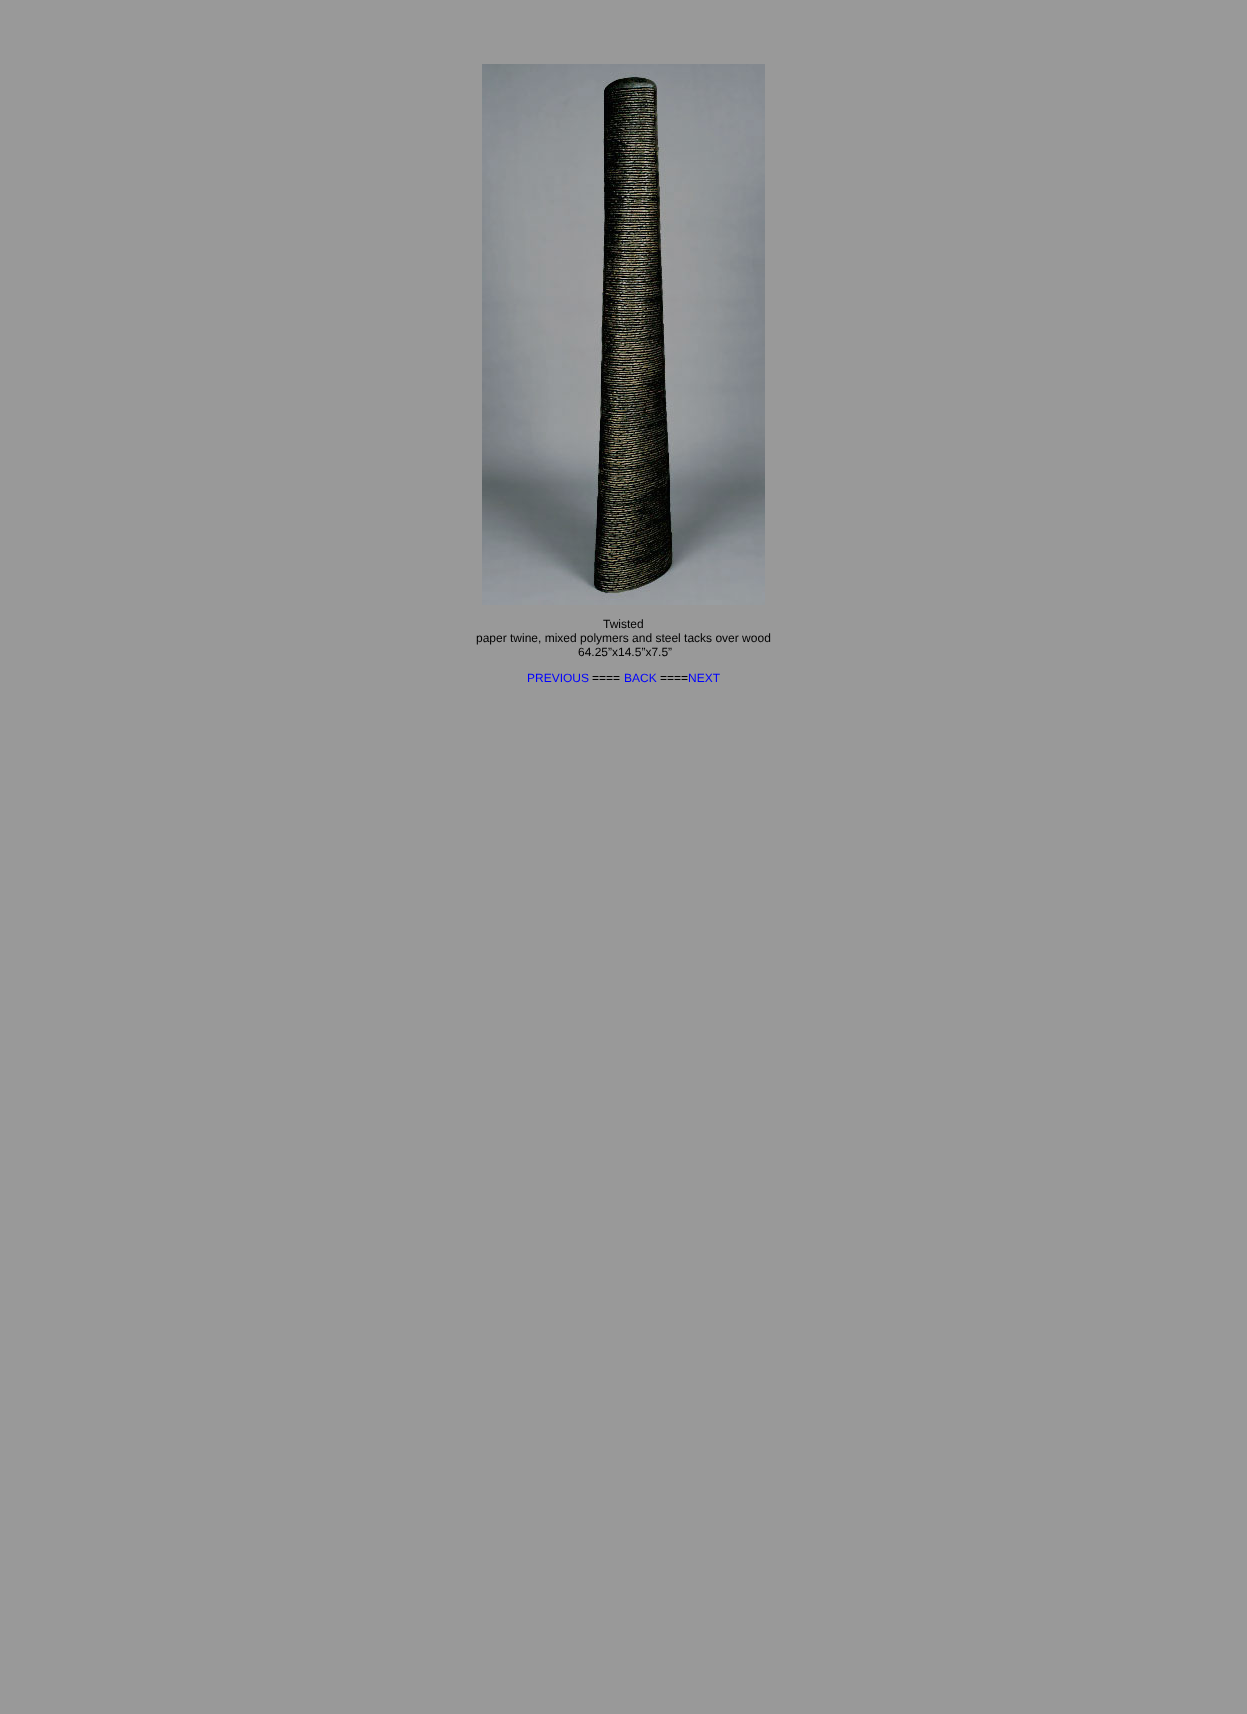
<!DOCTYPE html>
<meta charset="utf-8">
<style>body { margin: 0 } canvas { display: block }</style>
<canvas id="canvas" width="1247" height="1714"></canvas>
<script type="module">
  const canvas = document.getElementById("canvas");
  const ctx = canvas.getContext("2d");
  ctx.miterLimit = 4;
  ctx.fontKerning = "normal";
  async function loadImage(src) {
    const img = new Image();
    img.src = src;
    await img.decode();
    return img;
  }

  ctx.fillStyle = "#999999";
  ctx.fillRect(0, 0, 1247, 1714);
  ctx.drawImage(await loadImage("img1.png"), 482, 64, 283, 541);
  ctx.font = "12px Liberation Sans";
  ctx.fillStyle = "#000000";
  ctx.fillText("Twisted", 603, 628);
  ctx.fillText("paper twine, mixed polymers and steel tacks over wood", 476, 642);
  ctx.fillText("64.25”x14.5”x7.5”", 578, 656);
  ctx.fillStyle = "#0000ff";
  ctx.fillText("PREVIOUS", 527, 682);
  ctx.fillStyle = "#000000";
  ctx.fillText("====", 592, 682);
  ctx.fillStyle = "#0000ff";
  ctx.fillText("BACK", 624, 682);
  ctx.fillStyle = "#000000";
  ctx.fillText("====", 660, 682);
  ctx.fillStyle = "#0000ff";
  ctx.fillText("NEXT", 688, 682);
</script>
